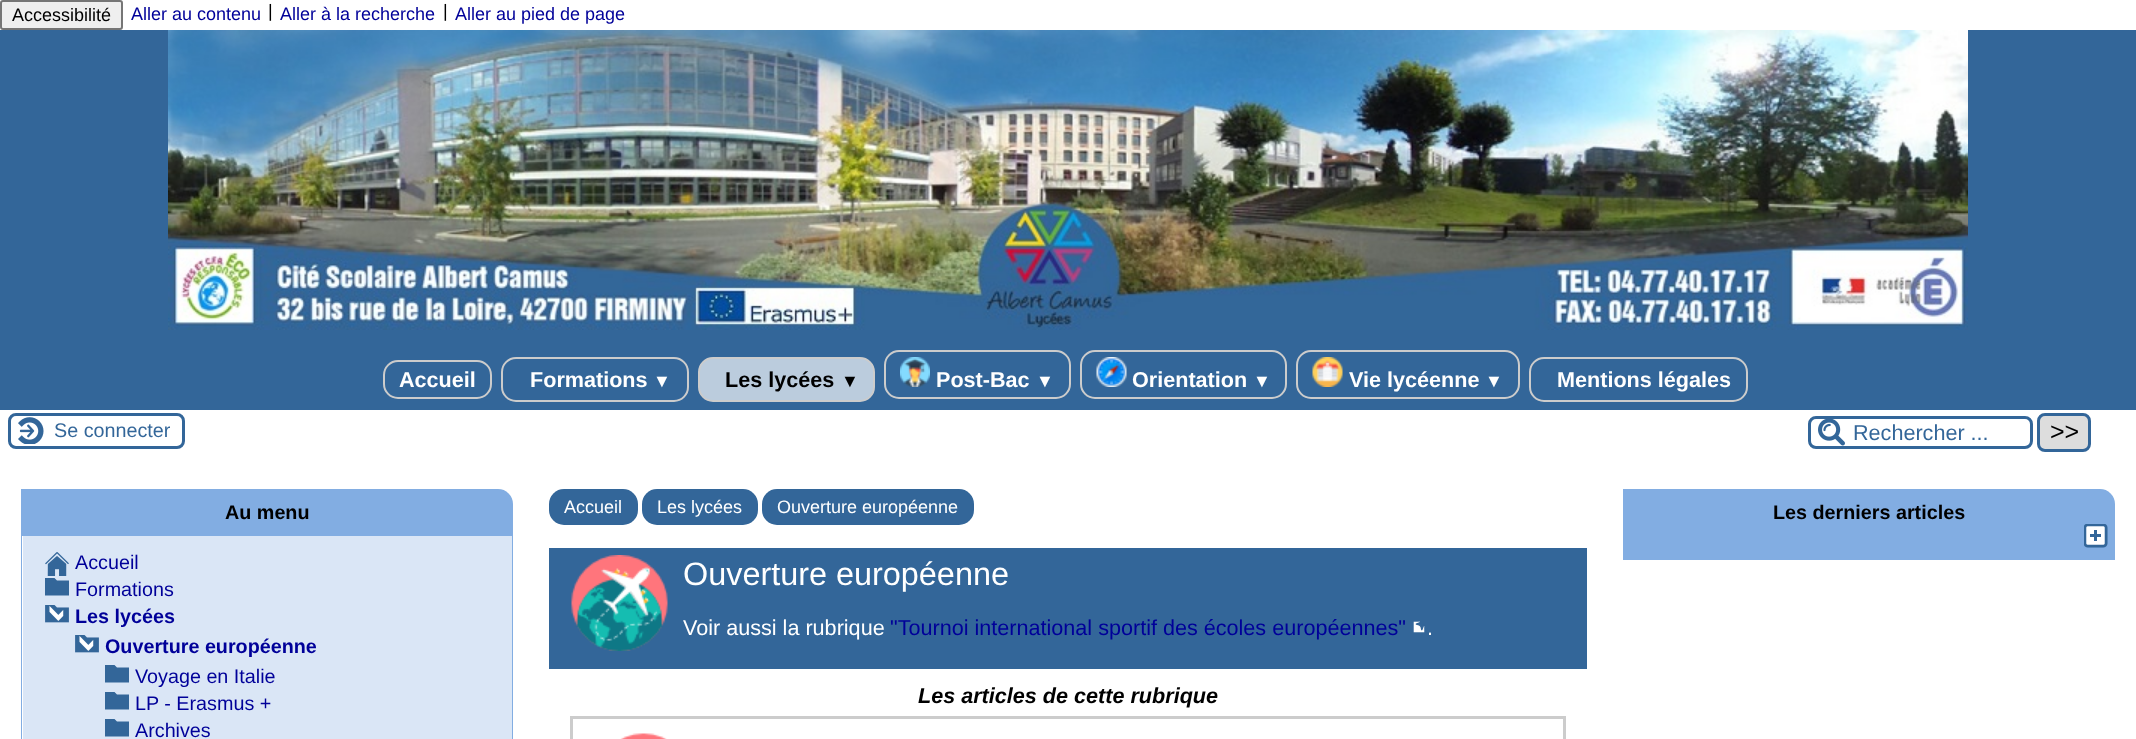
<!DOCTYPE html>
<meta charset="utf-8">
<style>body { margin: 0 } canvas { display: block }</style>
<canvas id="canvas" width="2136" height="739"></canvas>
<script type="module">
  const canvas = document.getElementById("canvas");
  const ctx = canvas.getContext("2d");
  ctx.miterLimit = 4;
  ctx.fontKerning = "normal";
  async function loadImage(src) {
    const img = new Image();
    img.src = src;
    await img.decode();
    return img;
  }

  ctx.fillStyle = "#ffffff";
  ctx.fillRect(0, 0, 2136, 739);
  ctx.fillStyle = "#336699";
  ctx.fillRect(0, 30, 2136, 380);
  ctx.fillStyle = "#efefef";
  ctx.beginPath();
  ctx.roundRect(1, 1, 121, 28, 2);
  ctx.fill();
  ctx.strokeStyle = "#767676";
  ctx.lineWidth = 2;
  ctx.stroke();
  ctx.font = "18px Liberation Sans";
  ctx.fillStyle = "#000000";
  ctx.fillText("Accessibilité", 12, 21);
  ctx.fillStyle = "#000099";
  ctx.fillText("Aller au contenu", 131, 20);
  ctx.fillStyle = "#000000";
  ctx.fillText("|", 268, 17);
  ctx.fillStyle = "#000099";
  ctx.fillText("Aller à la recherche", 280, 20);
  ctx.fillStyle = "#000000";
  ctx.fillText("|", 443, 17);
  ctx.fillStyle = "#000099";
  ctx.fillText("Aller au pied de page", 455, 20);
  ctx.drawImage(await loadImage("img1.png"), 168, 30, 1800, 300);
  ctx.beginPath();
  ctx.roundRect(384, 361, 107, 37, 14);
  ctx.strokeStyle = "#cccccc";
  ctx.stroke();
  ctx.font = "bold 21.6px Liberation Sans";
  ctx.fillStyle = "#ffffff";
  ctx.fillText("Accueil", 399, 387);
  ctx.beginPath();
  ctx.roundRect(502, 358, 186, 43, 14);
  ctx.stroke();
  ctx.fillText("Formations", 530, 387);
  ctx.font = "bold 18px Liberation Sans";
  ctx.fillText("▼", 653, 387);
  ctx.fillStyle = "#bbccdd";
  ctx.beginPath();
  ctx.roundRect(699, 358, 175, 43, 14);
  ctx.fill();
  ctx.stroke();
  ctx.font = "bold 21.6px Liberation Sans";
  ctx.fillStyle = "#000000";
  ctx.fillText("Les lycées", 725, 387);
  ctx.font = "bold 18px Liberation Sans";
  ctx.fillText("▼", 841, 387);
  ctx.beginPath();
  ctx.roundRect(885, 351, 185, 47, 14);
  ctx.stroke();
  ctx.drawImage(await loadImage("img2.png"), 900, 357, 30, 30);
  ctx.font = "bold 21.6px Liberation Sans";
  ctx.fillStyle = "#ffffff";
  ctx.fillText("Post-Bac", 936, 387);
  ctx.font = "bold 18px Liberation Sans";
  ctx.fillText("▼", 1036, 387);
  ctx.beginPath();
  ctx.roundRect(1081, 351, 205, 47, 14);
  ctx.stroke();
  ctx.drawImage(await loadImage("img3.png"), 1096, 357, 31, 30);
  ctx.font = "bold 21.6px Liberation Sans";
  ctx.fillText("Orientation", 1132, 387);
  ctx.font = "bold 18px Liberation Sans";
  ctx.fillText("▼", 1253, 387);
  ctx.beginPath();
  ctx.roundRect(1297, 351, 222, 47, 14);
  ctx.stroke();
  ctx.drawImage(await loadImage("img4.png"), 1312, 357, 31, 30);
  ctx.font = "bold 21.6px Liberation Sans";
  ctx.fillText("Vie lycéenne", 1349, 387);
  ctx.font = "bold 18px Liberation Sans";
  ctx.fillText("▼", 1485, 387);
  ctx.beginPath();
  ctx.roundRect(1530, 358, 217, 43, 14);
  ctx.stroke();
  ctx.font = "bold 21.6px Liberation Sans";
  ctx.fillText("Mentions légales", 1557, 387);
  ctx.drawImage(await loadImage("img5.png"), 18, 417, 26, 27);
  ctx.beginPath();
  ctx.roundRect(9.5, 414.5, 174, 33, 6.5);
  ctx.strokeStyle = "#336699";
  ctx.lineWidth = 3;
  ctx.stroke();
  ctx.font = "19.75px Liberation Sans";
  ctx.fillStyle = "#336699";
  ctx.fillText("Se connecter", 54, 437);
  ctx.drawImage(await loadImage("img6.png"), 1818, 419, 27, 27);
  ctx.beginPath();
  ctx.roundRect(1809.5, 417.5, 222, 30, 6.5);
  ctx.stroke();
  ctx.font = "21.6px Liberation Sans";
  ctx.fillText("Rechercher ...", 1853, 440);
  ctx.fillStyle = "#dddddd";
  ctx.beginPath();
  ctx.roundRect(2038.5, 414.5, 51, 36, 6.5);
  ctx.fill();
  ctx.stroke();
  ctx.font = "25px Liberation Sans";
  ctx.fillStyle = "#000000";
  ctx.fillText(">>", 2050, 440);
  ctx.fillStyle = "#82ade2";
  ctx.beginPath();
  ctx.roundRect(21, 489, 492, 47, [0, 15, 0, 0]);
  ctx.fill();
  ctx.font = "bold 19.75px Liberation Sans";
  ctx.fillStyle = "#000000";
  ctx.fillText("Au menu", 225, 519);
  ctx.fillStyle = "#dae6f6";
  ctx.fillRect(23, 536, 489, 203);
  ctx.fillStyle = "#82ade2";
  ctx.beginPath();
  ctx.moveTo(21, 536);
  ctx.lineTo(513, 536);
  ctx.lineTo(513, 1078);
  ctx.lineTo(36, 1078);
  ctx.bezierCurveTo(28, 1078, 21, 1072, 21, 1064);
  ctx.closePath();
  ctx.moveTo(22, 536);
  ctx.lineTo(512, 536);
  ctx.lineTo(512, 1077);
  ctx.lineTo(36, 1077);
  ctx.bezierCurveTo(29, 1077, 22, 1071, 22, 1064);
  ctx.closePath();
  ctx.fill("evenodd");
  ctx.drawImage(await loadImage("img7.png"), 45, 552, 24, 24);
  ctx.font = "19.75px Liberation Sans";
  ctx.fillStyle = "#000099";
  ctx.fillText("Accueil", 75, 569);
  ctx.save();
  ctx.beginPath();
  ctx.rect(45, 578, 24, 18);
  ctx.clip();
  ctx.fillStyle = "#336699";
  ctx.beginPath();
  ctx.moveTo(69, 595.5);
  ctx.lineTo(69, 580.5);
  ctx.lineTo(57, 580.5);
  ctx.lineTo(54, 577.5);
  ctx.lineTo(45, 577.5);
  ctx.lineTo(45, 595.5);
  ctx.closePath();
  ctx.fill();
  ctx.restore();
  ctx.fillText("Formations", 75, 596);
  ctx.drawImage(await loadImage("img8.png"), 45, 605, 24, 18);
  ctx.font = "bold 19.75px Liberation Sans";
  ctx.fillText("Les lycées", 75, 623);
  ctx.drawImage(await loadImage("img8.png"), 75, 635, 24, 18);
  ctx.fillText("Ouverture européenne", 105, 653);
  ctx.save();
  ctx.beginPath();
  ctx.rect(105, 665, 24, 18);
  ctx.clip();
  ctx.fillStyle = "#336699";
  ctx.beginPath();
  ctx.moveTo(129, 682.5);
  ctx.lineTo(129, 667.5);
  ctx.lineTo(117, 667.5);
  ctx.lineTo(114, 664.5);
  ctx.lineTo(105, 664.5);
  ctx.lineTo(105, 682.5);
  ctx.closePath();
  ctx.fill();
  ctx.restore();
  ctx.font = "19.75px Liberation Sans";
  ctx.fillText("Voyage en Italie", 135, 683);
  ctx.save();
  ctx.beginPath();
  ctx.rect(105, 692, 24, 18);
  ctx.clip();
  ctx.fillStyle = "#336699";
  ctx.beginPath();
  ctx.moveTo(129, 709.5);
  ctx.lineTo(129, 694.5);
  ctx.lineTo(117, 694.5);
  ctx.lineTo(114, 691.5);
  ctx.lineTo(105, 691.5);
  ctx.lineTo(105, 709.5);
  ctx.closePath();
  ctx.fill();
  ctx.restore();
  ctx.fillText("LP - Erasmus +", 135, 710);
  ctx.save();
  ctx.beginPath();
  ctx.rect(105, 719, 24, 18);
  ctx.clip();
  ctx.fillStyle = "#336699";
  ctx.beginPath();
  ctx.moveTo(129, 736.5);
  ctx.lineTo(129, 721.5);
  ctx.lineTo(117, 721.5);
  ctx.lineTo(114, 718.5);
  ctx.lineTo(105, 718.5);
  ctx.lineTo(105, 736.5);
  ctx.closePath();
  ctx.fill();
  ctx.restore();
  ctx.fillText("Archives", 135, 737);
  ctx.fillStyle = "#336699";
  ctx.beginPath();
  ctx.roundRect(549, 489, 89, 36, 15);
  ctx.fill();
  ctx.font = "18px Liberation Sans";
  ctx.fillStyle = "#ffffff";
  ctx.fillText("Accueil", 564, 513);
  ctx.fillStyle = "#336699";
  ctx.beginPath();
  ctx.roundRect(642, 489, 116, 36, 15);
  ctx.fill();
  ctx.fillStyle = "#ffffff";
  ctx.fillText("Les lycées", 657, 513);
  ctx.fillStyle = "#336699";
  ctx.beginPath();
  ctx.roundRect(762, 489, 212, 36, 15);
  ctx.fill();
  ctx.fillStyle = "#ffffff";
  ctx.fillText("Ouverture européenne", 777, 513);
  ctx.fillStyle = "#336699";
  ctx.fillRect(549, 548, 1038, 121);
  ctx.drawImage(await loadImage("img9.png"), 571, 555, 97, 96);
  ctx.font = "32.4px Liberation Sans";
  ctx.fillStyle = "#ffffff";
  ctx.fillText("Ouverture européenne", 683, 585);
  ctx.font = "21.6px Liberation Sans";
  ctx.fillText("Voir aussi la rubrique", 683, 635);
  ctx.fillStyle = "#000099";
  ctx.fillText("\"Tournoi international sportif des écoles européennes\"", 890, 635);
  ctx.drawImage(await loadImage("img10.png"), 1413, 621, 12, 12);
  ctx.fillStyle = "#ffffff";
  ctx.fillText(".", 1427, 635);
  ctx.font = "italic bold 21.6px Liberation Sans";
  ctx.fillStyle = "#000000";
  ctx.fillText("Les articles de cette rubrique", 918, 703);
  ctx.strokeStyle = "#cccccc";
  ctx.strokeRect(571.5, 717.5, 993, 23);
  ctx.drawImage(await loadImage("img11.png"), 620, 733, 47, 6);
  ctx.fillStyle = "#82ade2";
  ctx.beginPath();
  ctx.roundRect(1623, 489, 492, 71, [0, 15, 0, 0]);
  ctx.fill();
  ctx.font = "bold 19.75px Liberation Sans";
  ctx.fillStyle = "#000000";
  ctx.fillText("Les derniers articles", 1773, 519);
  ctx.drawImage(await loadImage("img12.png"), 2084, 524, 24, 24);
</script>
